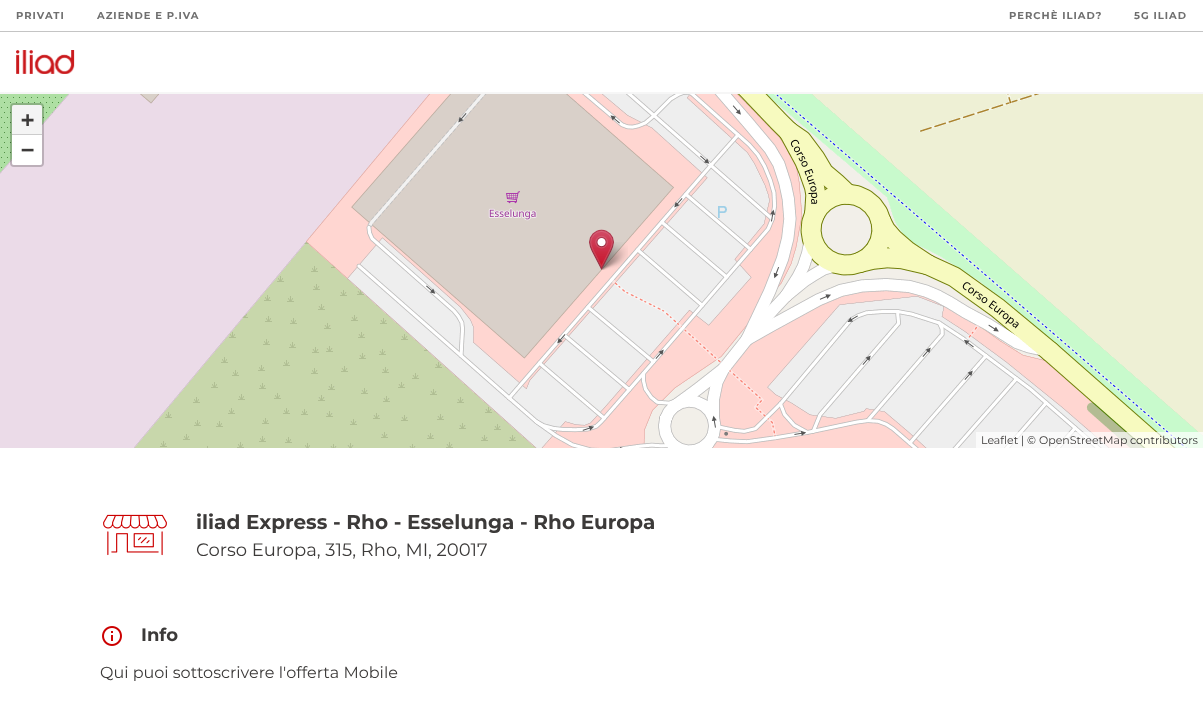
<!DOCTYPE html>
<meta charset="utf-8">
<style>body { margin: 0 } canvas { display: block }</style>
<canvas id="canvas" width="1203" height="710"></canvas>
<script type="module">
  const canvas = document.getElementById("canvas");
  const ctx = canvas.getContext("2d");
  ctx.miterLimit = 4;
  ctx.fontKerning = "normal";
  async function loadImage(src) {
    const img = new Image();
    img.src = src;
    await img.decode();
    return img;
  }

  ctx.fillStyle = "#ffffff";
  ctx.fillRect(0, 0, 1203, 710);
  ctx.drawImage(await loadImage("img2.png"), 0, 93, 56, 37);
  ctx.drawImage(await loadImage("img3.png"), 56, 93, 256, 37);
  ctx.drawImage(await loadImage("img4.png"), 312, 93, 256, 37);
  ctx.drawImage(await loadImage("img5.png"), 568, 93, 256, 37);
  ctx.drawImage(await loadImage("img6.png"), 824, 93, 256, 37);
  ctx.fillStyle = "#eef0d5";
  ctx.fillRect(1080, 93, 123, 37);
  ctx.save();
  ctx.beginPath();
  ctx.rect(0, 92, 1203, 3);
  ctx.clip();
  ctx.fillStyle = "#f6f6f6";
  ctx.filter = "blur(0.5px)";
  ctx.beginPath();
  ctx.rect(0, 34, 1203, 60);
  ctx.fill();
  ctx.filter = "none";
  ctx.restore();
  ctx.fillStyle = "#c4c4c4";
  ctx.fillRect(0, 31, 1203, 1);
  ctx.letterSpacing = "1px";
  ctx.font = "100 10px Montserrat";
  ctx.fillStyle = "#6f6f6f";
  ctx.fillText("PRIVATI", 16, 19);
  ctx.fillText("AZIENDE E P.IVA", 97, 19);
  ctx.fillText("PERCHÈ ILIAD?", 1009, 19);
  ctx.fillText("5G ILIAD", 1134, 19);
  ctx.drawImage(await loadImage("img1.png"), 16, 50, 59, 24);
  ctx.drawImage(await loadImage("img7.png"), 0, 130, 56, 256);
  ctx.drawImage(await loadImage("img8.png"), 56, 130, 256, 256);
  ctx.drawImage(await loadImage("img9.png"), 312, 130, 256, 256);
  ctx.drawImage(await loadImage("img10.png"), 568, 130, 256, 256);
  ctx.drawImage(await loadImage("img11.png"), 824, 130, 256, 256);
  ctx.drawImage(await loadImage("img12.png"), 1080, 130, 123, 256);
  ctx.fillStyle = "#ebdbe8";
  ctx.fillRect(0, 386, 56, 62);
  ctx.drawImage(await loadImage("img13.png"), 56, 386, 256, 62);
  ctx.drawImage(await loadImage("img14.png"), 312, 386, 256, 62);
  ctx.drawImage(await loadImage("img15.png"), 568, 386, 256, 62);
  ctx.drawImage(await loadImage("img16.png"), 824, 386, 256, 62);
  ctx.drawImage(await loadImage("img17.png"), 1080, 386, 123, 62);
  ctx.drawImage(await loadImage("img19.png"), 599, 242, 29, 28);
  ctx.drawImage(await loadImage("img18.png"), 589, 229, 25, 41);
  ctx.beginPath();
  ctx.roundRect(11, 104, 32, 62, 3);
  ctx.strokeStyle = "rgba(0, 0, 0, 0.2)";
  ctx.lineWidth = 2;
  ctx.stroke();
  ctx.fillStyle = "#f4f4f4";
  ctx.beginPath();
  ctx.roundRect(12, 105, 30, 30, [2, 2, 0, 0]);
  ctx.fill();
  ctx.fillStyle = "#cccccc";
  ctx.fillRect(12, 134, 30, 1);
  ctx.letterSpacing = "0px";
  ctx.font = "bold 22px DejaVu Sans Mono";
  ctx.fillStyle = "#3c3a39";
  ctx.fillText("+", 21, 127);
  ctx.fillStyle = "#ffffff";
  ctx.beginPath();
  ctx.roundRect(12, 135, 30, 30, [0, 0, 2, 2]);
  ctx.fill();
  ctx.fillStyle = "#3c3a39";
  ctx.fillText("−", 21, 157);
  ctx.fillStyle = "rgba(255, 255, 255, 0.7)";
  ctx.fillRect(976, 432, 227, 16);
  ctx.font = "100 11px 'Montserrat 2'";
  ctx.fillStyle = "#3c3a39";
  ctx.fillText("Leaflet", 981, 444);
  ctx.fillStyle = "#333333";
  ctx.fillText("| ©", 1021, 444);
  ctx.fillStyle = "#3c3a39";
  ctx.fillText("OpenStreetMap", 1039, 444);
  ctx.fillStyle = "#333333";
  ctx.fillText("contributors", 1130, 444);
  ctx.drawImage(await loadImage("img20.png"), 103, 514, 64, 42);
  ctx.font = "100 20px Montserrat";
  ctx.fillStyle = "#3c3a39";
  ctx.fillText("iliad Express - Rho - Esselunga - Rho Europa", 196, 529);
  ctx.font = "100 18px 'Montserrat 2'";
  ctx.fillText("Corso Europa, 315, Rho, MI, 20017", 196, 556);
  ctx.drawImage(await loadImage("img21.png"), 102, 626, 20, 20);
  ctx.font = "100 18px Montserrat";
  ctx.fillText("Info", 141, 641);
  ctx.font = "100 16px 'Montserrat 2'";
  ctx.fillText("Qui puoi sottoscrivere l'offerta Mobile", 100, 678);
</script>
